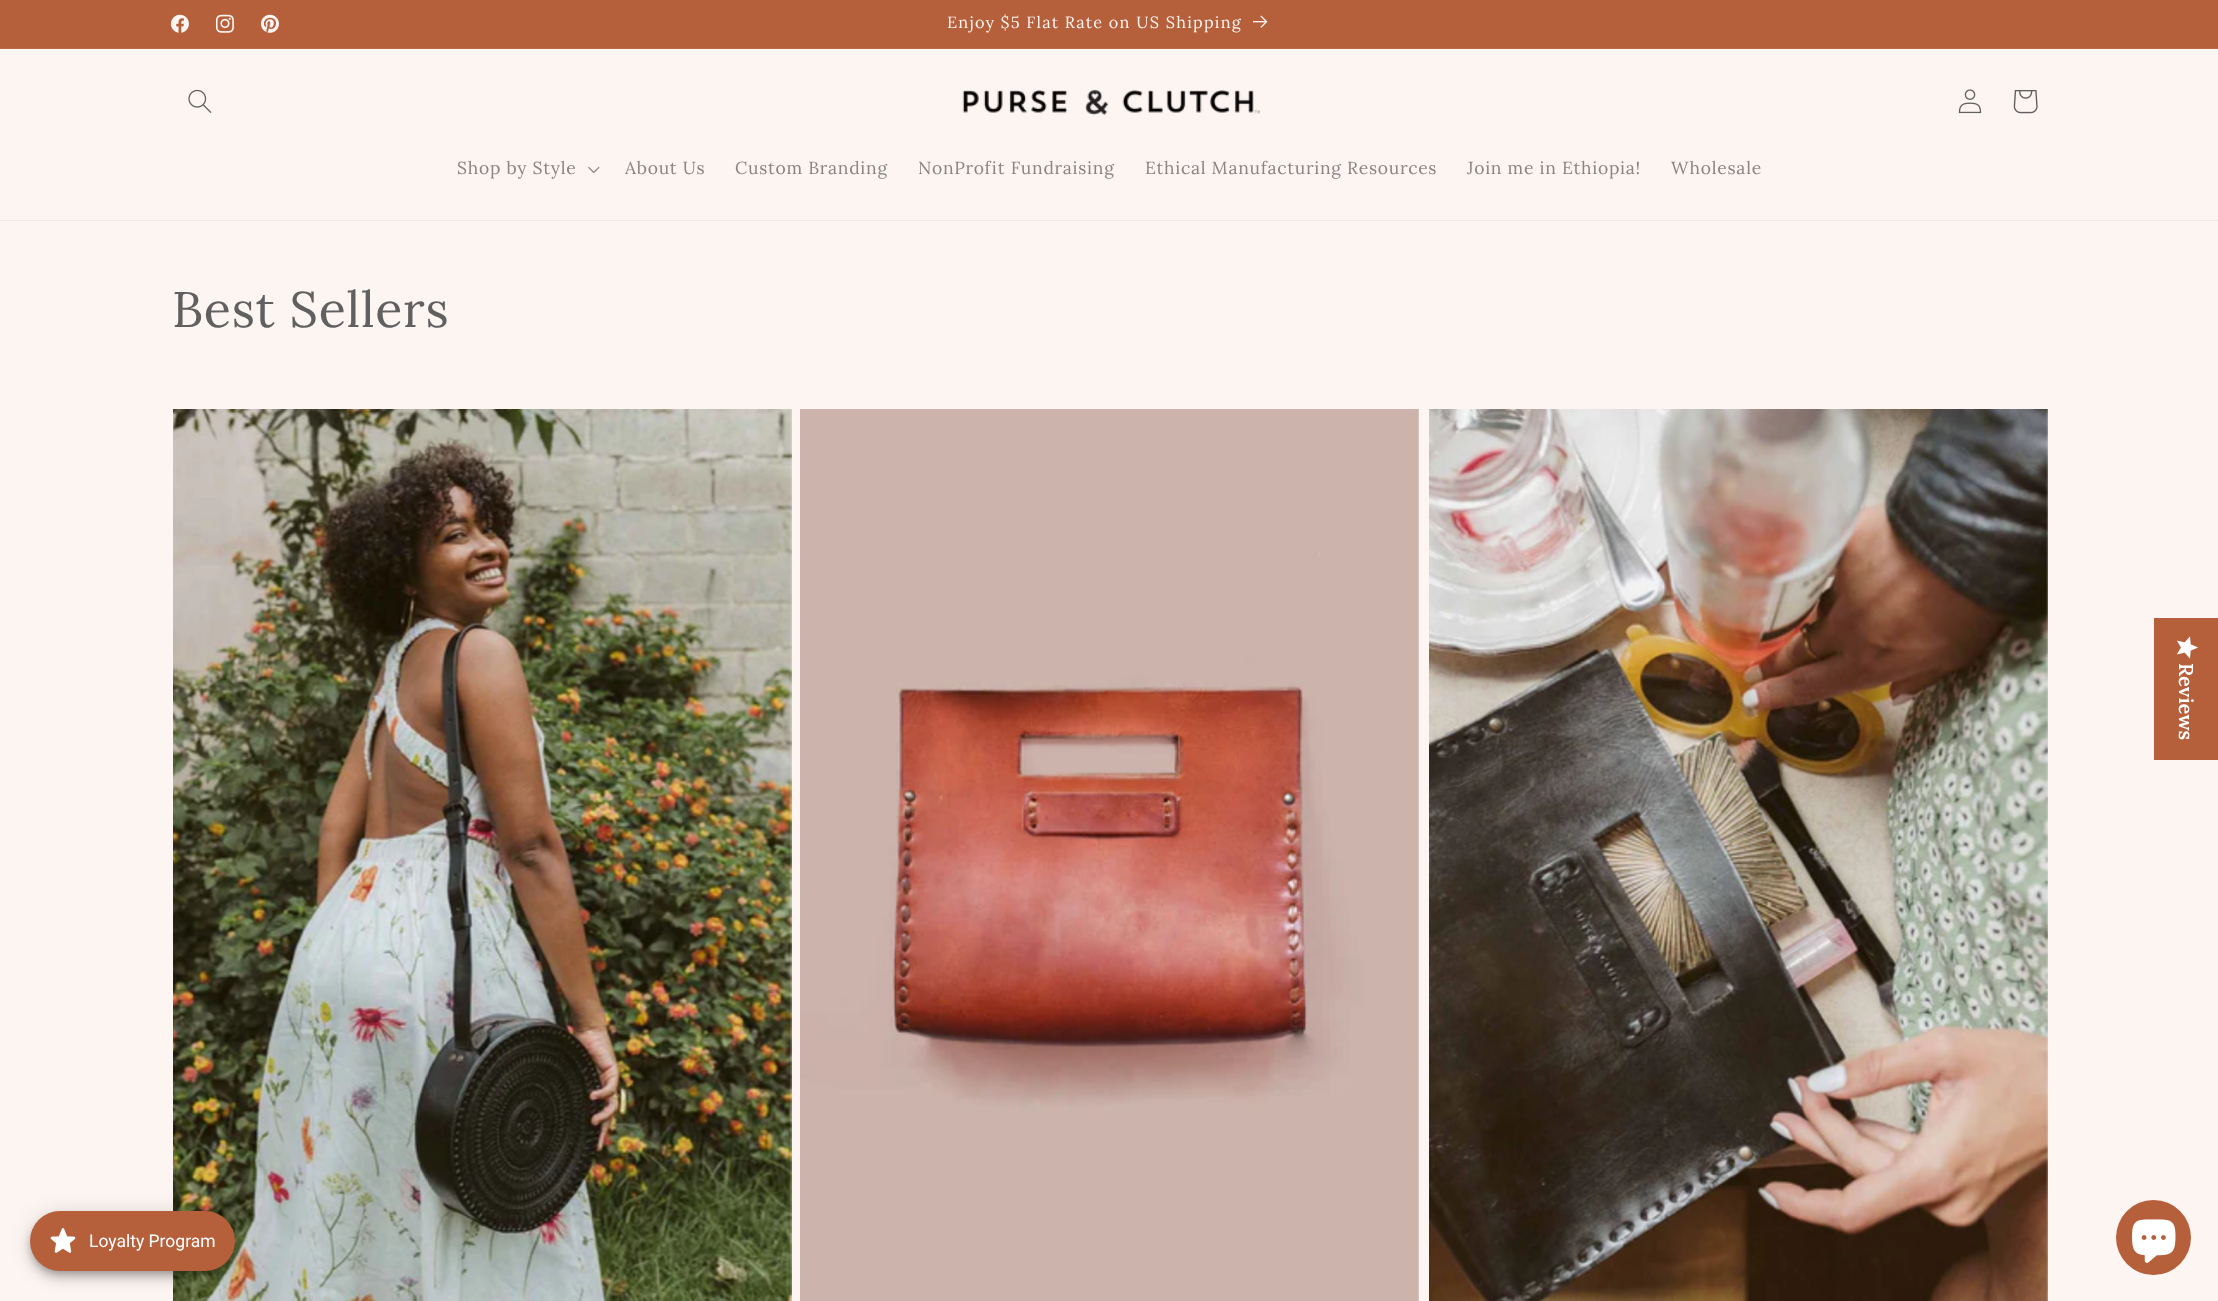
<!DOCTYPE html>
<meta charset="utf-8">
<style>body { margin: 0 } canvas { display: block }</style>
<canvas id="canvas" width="2218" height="1301"></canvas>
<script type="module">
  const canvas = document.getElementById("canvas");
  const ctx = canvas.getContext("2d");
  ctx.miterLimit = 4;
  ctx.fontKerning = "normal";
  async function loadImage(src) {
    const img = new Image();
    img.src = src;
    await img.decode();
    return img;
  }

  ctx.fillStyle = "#fdf5f2";
  ctx.fillRect(0, 0, 2218, 1301);
  ctx.fillStyle = "#b55f3b";
  ctx.fillRect(0, 0, 2218, 48);
  ctx.fillStyle = "#bb6b4a";
  ctx.fillRect(0, 48, 2218, 1);
  ctx.drawImage(await loadImage("img1.png"), 170, 14, 19, 19);
  ctx.drawImage(await loadImage("img2.png"), 215, 14, 19, 19);
  ctx.drawImage(await loadImage("img3.png"), 260, 14, 19, 19);
  ctx.letterSpacing = "1.25px";
  ctx.font = "16.25px Lora";
  ctx.fillStyle = "#fdf5f2";
  ctx.fillText("Enjoy $5 Flat Rate on US Shipping", 947, 28);
  ctx.drawImage(await loadImage("img4.png"), 1253, 15, 15, 13);
  ctx.fillStyle = "#f0e9e6";
  ctx.fillRect(0, 220, 2218, 1);
  ctx.drawImage(await loadImage("img5.png"), 188, 89, 24, 24);
  ctx.drawImage(await loadImage("img6.png"), 962, 89, 298, 27);
  ctx.drawImage(await loadImage("img7.png"), 1958, 89, 24, 25);
  ctx.drawImage(await loadImage("img8.png"), 2013, 90, 25, 24);
  ctx.letterSpacing = "0.75px";
  ctx.font = "17.5px Lora";
  ctx.fillStyle = "#878585";
  ctx.fillText("Shop by Style", 457, 174);
  ctx.drawImage(await loadImage("img9.png"), 588, 166, 12, 8);
  ctx.fillText("About Us", 625, 174);
  ctx.fillText("Custom Branding", 735, 174);
  ctx.fillText("NonProfit Fundraising", 918, 174);
  ctx.fillText("Ethical Manufacturing Resources", 1145, 174);
  ctx.fillText("Join me in Ethiopia!", 1467, 174);
  ctx.fillText("Wholesale", 1671, 174);
  ctx.font = "50px Lora";
  ctx.fillStyle = "#606060";
  ctx.fillText("Best Sellers", 172, 327);
  ctx.drawImage(await loadImage("img10.png"), 173, 409, 619, 892);
  ctx.drawImage(await loadImage("img11.png"), 800, 409, 619, 892);
  ctx.drawImage(await loadImage("img12.png"), 1429, 409, 619, 892);
  ctx.fillStyle = "#b55f3b";
  ctx.fillRect(2154, 618, 64, 142);
  ctx.drawImage(await loadImage("img13.png"), 2177, 636, 21, 23);
  ctx.letterSpacing = "0px";
  ctx.font = "600 20px Lora";
  ctx.fillStyle = "#ffffff";
  ctx.save();
  ctx.translate(2179, 663);
  ctx.rotate(90 * Math.PI / 180);
  ctx.fillText("Reviews", 0, 0);
  ctx.restore();
  ctx.fillStyle = "rgba(0, 0, 0, 0.12)";
  ctx.filter = "blur(11px)";
  ctx.beginPath();
  ctx.roundRect(30, 1213, 205, 60, 30);
  ctx.fill();
  ctx.filter = "none";
  ctx.fillStyle = "rgba(0, 0, 0, 0.14)";
  ctx.filter = "blur(6px)";
  ctx.beginPath();
  ctx.roundRect(30, 1219, 205, 60, 30);
  ctx.fill();
  ctx.filter = "none";
  ctx.fillStyle = "rgba(0, 0, 0, 0.2)";
  ctx.filter = "blur(3px)";
  ctx.beginPath();
  ctx.roundRect(31, 1216, 203, 58, 29);
  ctx.fill();
  ctx.filter = "none";
  ctx.fillStyle = "#b55f3b";
  ctx.beginPath();
  ctx.roundRect(30, 1211, 205, 60, 30);
  ctx.fill();
  ctx.drawImage(await loadImage("img14.png"), 50, 1228, 26, 25);
  ctx.font = "17.5px Roboto";
  ctx.fillStyle = "#ffffff";
  ctx.fillText("Loyalty Program", 89, 1247);
  ctx.fillStyle = "#b55f3b";
  ctx.beginPath();
  ctx.arc(2153.5, 1237.5, 37.5, 0, Math.PI * 2);
  ctx.fill();
  ctx.drawImage(await loadImage("img15.png"), 2132, 1219, 44, 44);
</script>
